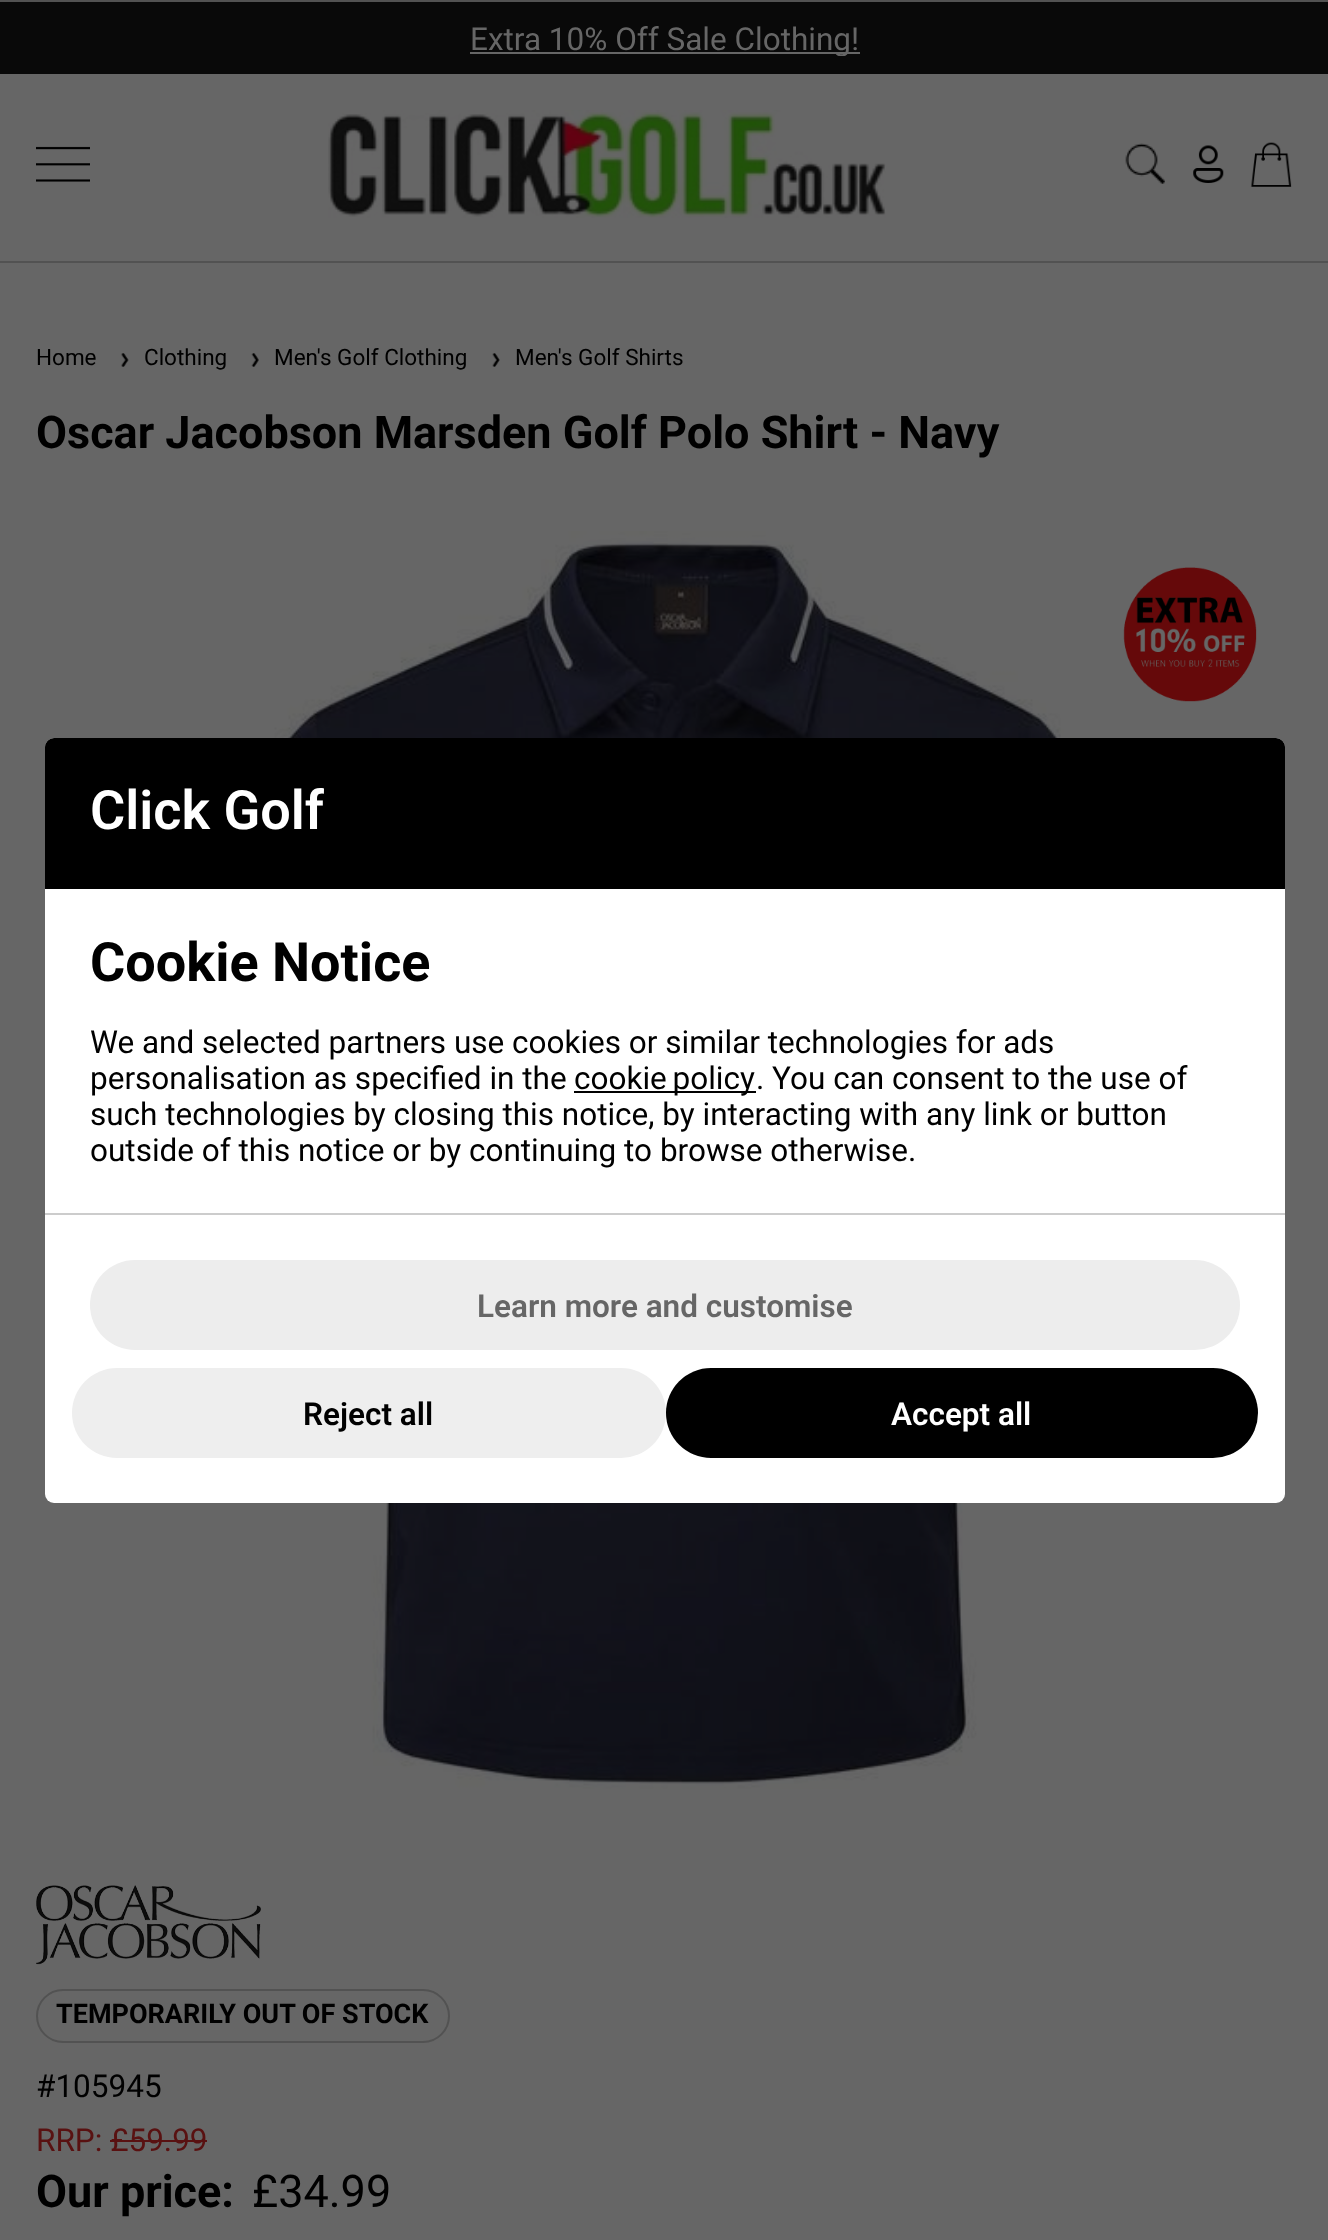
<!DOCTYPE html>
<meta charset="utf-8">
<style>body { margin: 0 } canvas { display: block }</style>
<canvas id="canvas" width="1328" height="2240"></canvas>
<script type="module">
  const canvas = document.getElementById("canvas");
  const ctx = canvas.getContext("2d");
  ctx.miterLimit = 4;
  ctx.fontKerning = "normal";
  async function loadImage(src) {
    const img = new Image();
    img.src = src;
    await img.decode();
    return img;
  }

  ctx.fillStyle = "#666666";
  ctx.fillRect(0, 0, 1328, 2240);
  ctx.fillStyle = "#525252";
  ctx.fillRect(0, 0, 1328, 2);
  ctx.fillRect(0, 261, 1328, 2);
  ctx.fillStyle = "#090909";
  ctx.fillRect(0, 2, 1328, 72);
  ctx.fillStyle = "#666666";
  ctx.fillRect(470, 52, 390, 2);
  ctx.save();
  ctx.beginPath();
  ctx.rect(18, 20, 1294, 36);
  ctx.clip();
  ctx.font = "31.5px Roboto";
  ctx.fillText("Extra 10% Off Sale Clothing!", 470, 50);
  ctx.restore();
  ctx.drawImage(await loadImage("img1.png"), 36, 146, 54, 36);
  ctx.drawImage(await loadImage("img2.png"), 328, 110, 558, 108);
  ctx.drawImage(await loadImage("img3.png"), 1125, 143, 40, 41);
  ctx.drawImage(await loadImage("img4.png"), 1193, 145, 31, 38);
  ctx.drawImage(await loadImage("img5.png"), 1250, 142, 42, 45);
  ctx.font = "22.5px Roboto";
  ctx.fillStyle = "#000000";
  ctx.fillText("Home", 36, 365);
  ctx.drawImage(await loadImage("img6.png"), 121, 353, 8, 14);
  ctx.fillText("Clothing", 144, 365);
  ctx.drawImage(await loadImage("img7.png"), 251, 353, 8, 14);
  ctx.fillText("Men's Golf Clothing", 274, 365);
  ctx.drawImage(await loadImage("img8.png"), 492, 353, 8, 14);
  ctx.fillText("Men's Golf Shirts", 515, 365);
  ctx.font = "bold 45px Roboto";
  ctx.fillText("Oscar Jacobson Marsden Golf Polo Shirt - Navy", 36, 448);
  ctx.drawImage(await loadImage("img9.png"), 176, 531, 969, 1258);
  ctx.drawImage(await loadImage("img10.png"), 1123, 567, 134, 135);
  ctx.drawImage(await loadImage("img11.png"), 36, 1885, 225, 80);
  ctx.beginPath();
  ctx.roundRect(37, 1990, 412, 52, 26);
  ctx.strokeStyle = "#525252";
  ctx.lineWidth = 2;
  ctx.stroke();
  ctx.font = "bold 27px Roboto";
  ctx.fillText("TEMPORARILY OUT OF STOCK", 56, 2023);
  ctx.font = "31.5px Roboto";
  ctx.fillText("#105945", 36, 2097);
  ctx.fillStyle = "#591111";
  ctx.fillText("RRP: £59.99", 36, 2151);
  ctx.fillRect(110, 2140, 97, 2);
  ctx.font = "bold 45px Roboto";
  ctx.fillStyle = "#000000";
  ctx.fillText("Our price:", 36, 2207);
  ctx.font = "45px Roboto";
  ctx.fillText("£34.99", 252, 2207);
  ctx.fillStyle = "#ffffff";
  ctx.beginPath();
  ctx.roundRect(45, 738, 1240, 765, 9);
  ctx.fill();
  ctx.fillStyle = "#000000";
  ctx.beginPath();
  ctx.roundRect(45, 738, 1240, 151, [9, 9, 0, 0]);
  ctx.fill();
  ctx.font = "600 54px Roboto";
  ctx.fillStyle = "#ffffff";
  ctx.fillText("Click Golf", 90, 829);
  ctx.font = "bold 54px Roboto";
  ctx.fillStyle = "#000000";
  ctx.fillText("Cookie Notice", 90, 981);
  ctx.font = "31.5px Roboto";
  ctx.fillText("We and selected partners use cookies or similar technologies for ads", 90, 1053);
  ctx.fillText("personalisation as specified in the", 90, 1089);
  ctx.fillRect(574, 1091, 182, 2);
  ctx.wordSpacing = "-2px";
  ctx.fillText("cookie policy", 574, 1089);
  ctx.wordSpacing = "0px";
  ctx.fillText(". You can consent to the use of", 756, 1089);
  ctx.fillText("such technologies by closing this notice, by interacting with any link or button", 90, 1125);
  ctx.fillText("outside of this notice or by continuing to browse otherwise.", 90, 1161);
  ctx.fillStyle = "#cccccc";
  ctx.fillRect(45, 1213, 1240, 2);
  ctx.fillStyle = "#ededed";
  ctx.beginPath();
  ctx.roundRect(90, 1260, 1150, 90, 45);
  ctx.fill();
  ctx.font = "600 31.5px Roboto";
  ctx.fillStyle = "#666666";
  ctx.fillText("Learn more and customise", 477, 1317);
  ctx.fillStyle = "#eeeeee";
  ctx.beginPath();
  ctx.roundRect(72, 1368, 594, 90, 45);
  ctx.fill();
  ctx.fillStyle = "#000000";
  ctx.fillText("Reject all", 303, 1425);
  ctx.beginPath();
  ctx.roundRect(666, 1368, 592, 90, 45);
  ctx.fill();
  ctx.fillStyle = "#ffffff";
  ctx.fillText("Accept all", 891, 1425);
</script>
